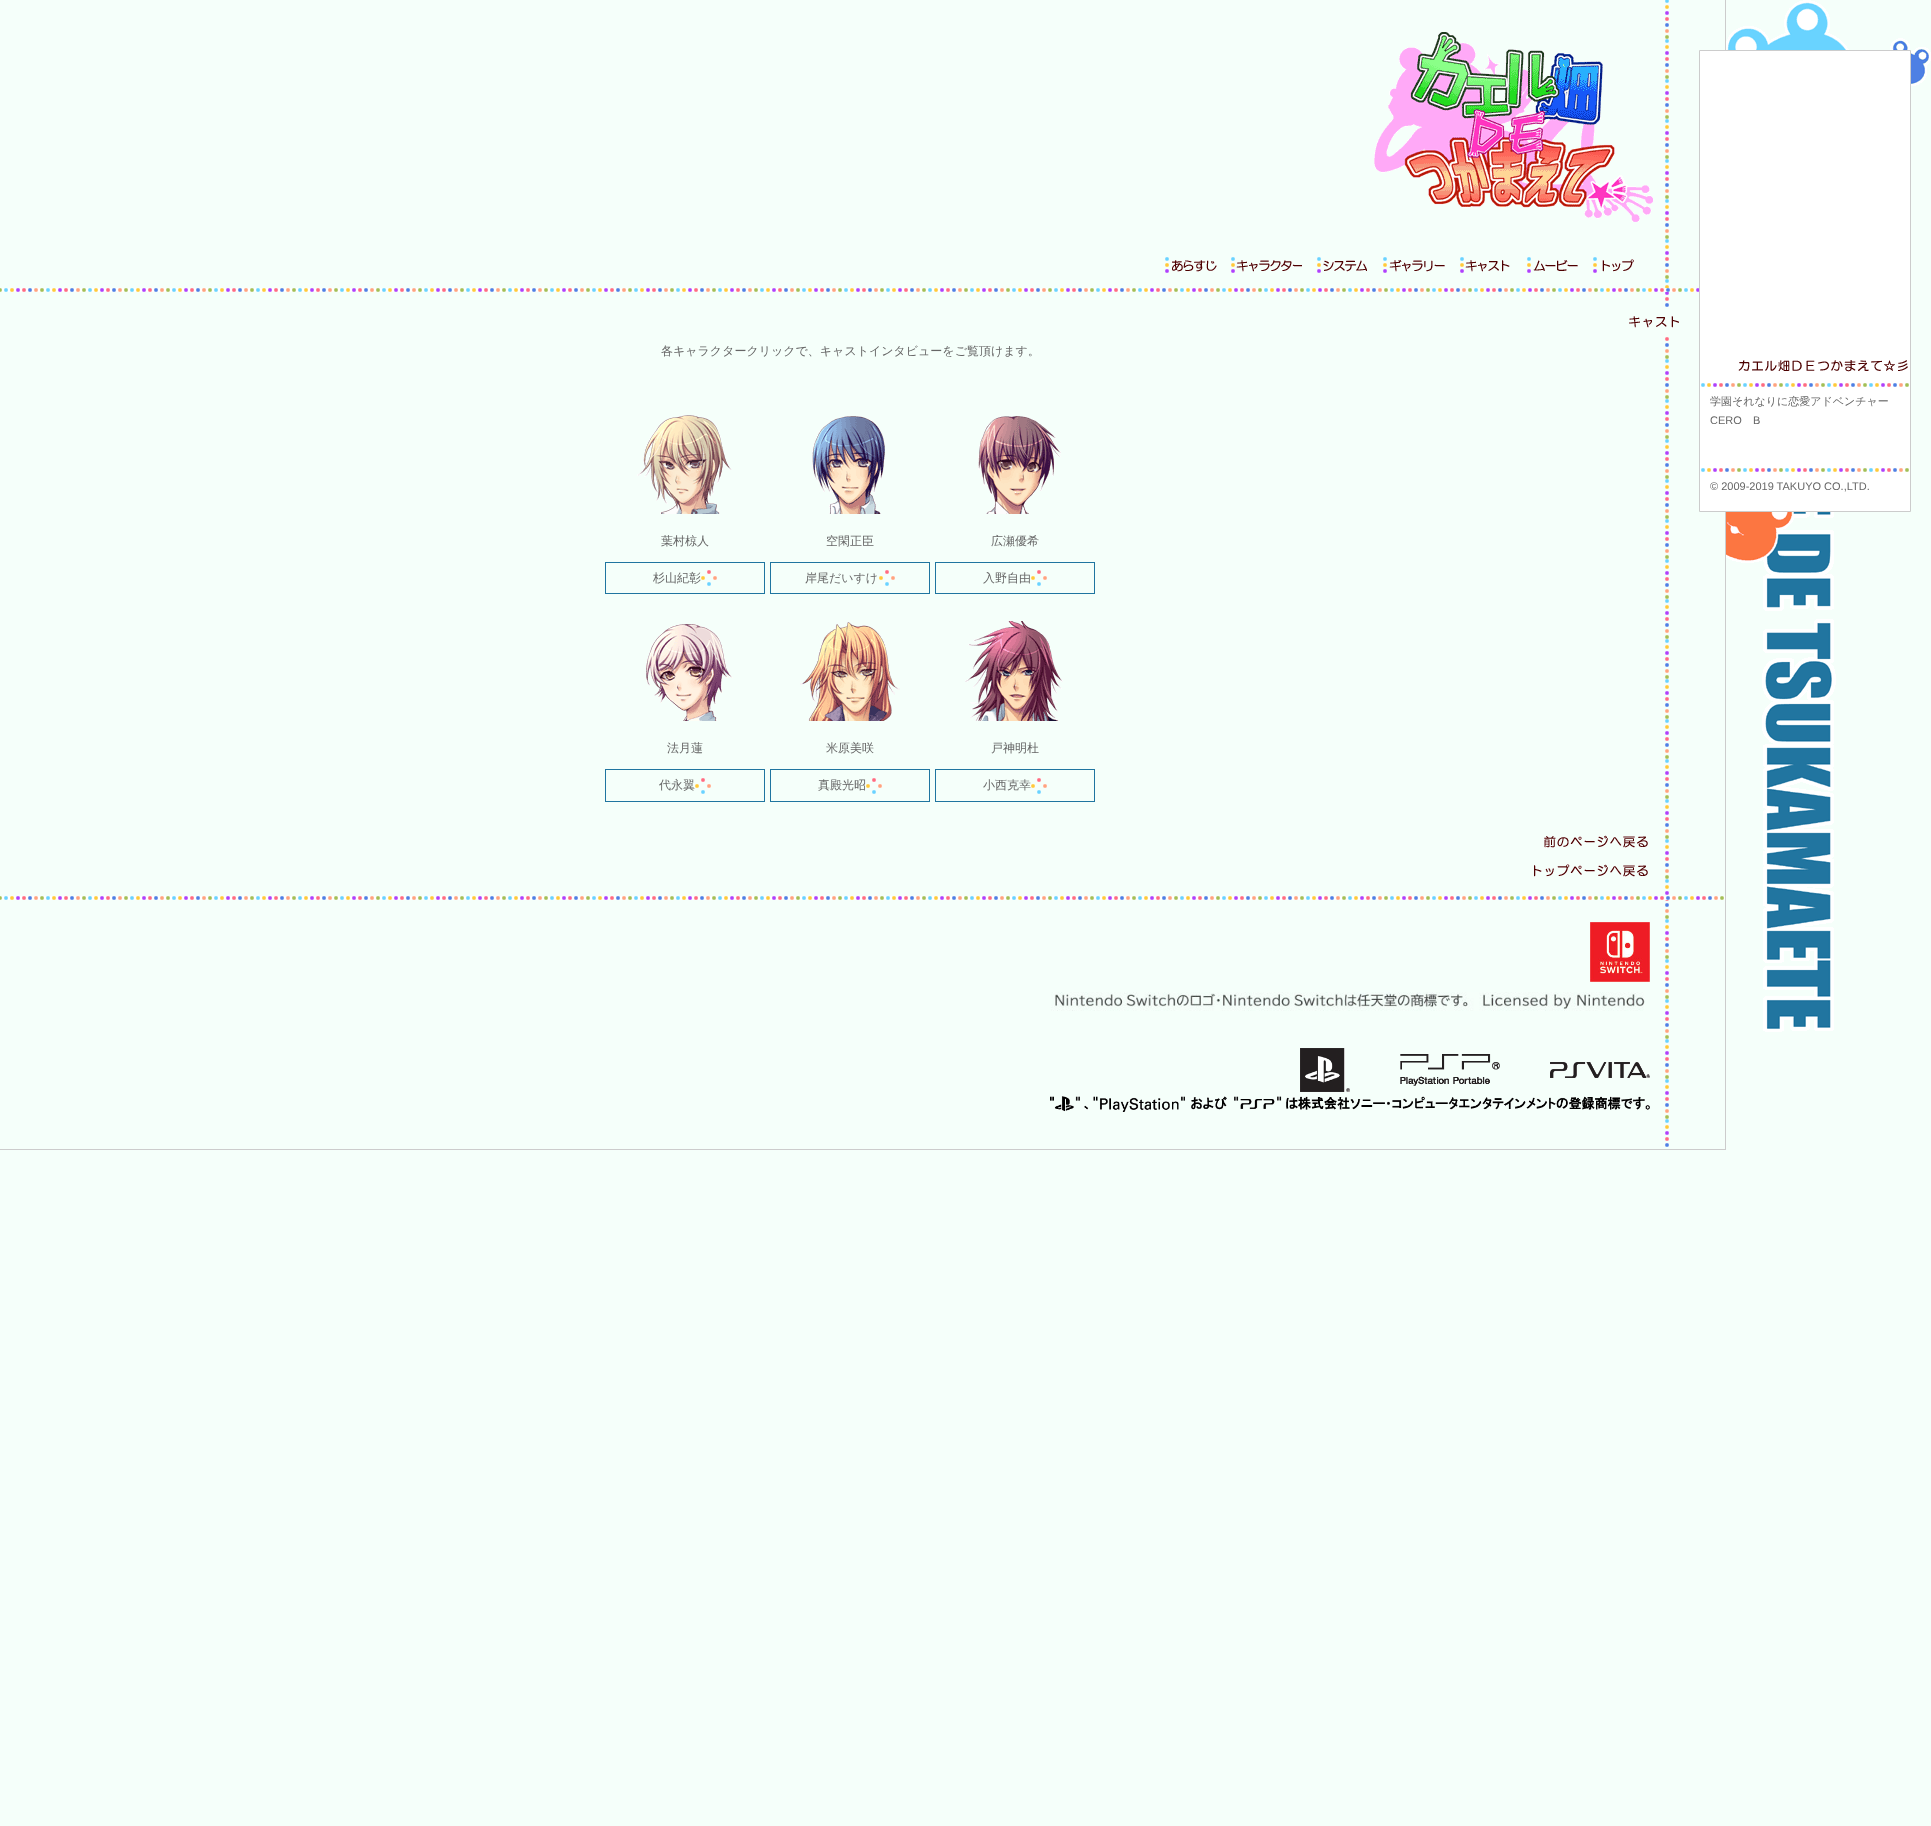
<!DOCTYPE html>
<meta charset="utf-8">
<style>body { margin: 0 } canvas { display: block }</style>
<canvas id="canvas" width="1931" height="1826"></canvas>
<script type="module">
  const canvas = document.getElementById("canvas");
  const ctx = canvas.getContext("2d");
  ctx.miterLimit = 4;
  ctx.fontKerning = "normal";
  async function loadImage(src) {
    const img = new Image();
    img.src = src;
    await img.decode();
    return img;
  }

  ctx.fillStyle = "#f5fffa";
  ctx.fillRect(0, 0, 1931, 1826);
  ctx.drawImage(await loadImage("img1.png"), 1726, 0, 205, 1032);
  ctx.drawImage(await loadImage("img2.png"), 1665, 0, 4, 1147);
  ctx.fillStyle = "#cccccc";
  ctx.fillRect(1725, 0, 1, 1150);
  ctx.fillRect(0, 1149, 1726, 1);
  ctx.drawImage(await loadImage("img3.png"), 1374, 32, 279, 190);
  ctx.drawImage(await loadImage("img4.png"), 0, 288, 1699, 4);
  ctx.drawImage(await loadImage("img5.png"), 1165, 257, 52, 16);
  ctx.drawImage(await loadImage("img6.png"), 1231, 257, 71, 16);
  ctx.drawImage(await loadImage("img7.png"), 1317, 257, 50, 16);
  ctx.drawImage(await loadImage("img8.png"), 1383, 257, 62, 16);
  ctx.drawImage(await loadImage("img9.png"), 1460, 257, 50, 16);
  ctx.drawImage(await loadImage("img10.png"), 1527, 257, 51, 16);
  ctx.drawImage(await loadImage("img11.png"), 1593, 257, 41, 16);
  ctx.fillStyle = "#f5fffa";
  ctx.fillRect(1665, 309, 4, 26);
  ctx.drawImage(await loadImage("img12.png"), 1629, 316, 50, 12);
  ctx.font = "500 12px WenQuanYi Zen Hei";
  ctx.fillStyle = "#666666";
  ctx.fillText("各キャラクタークリックで、キャストインタビューをご覧頂けます。", 661, 355);
  ctx.drawImage(await loadImage("img13.png"), 637, 415, 95, 99);
  ctx.drawImage(await loadImage("img14.png"), 812, 416, 74, 98);
  ctx.drawImage(await loadImage("img15.png"), 978, 416, 83, 98);
  ctx.fillText("葉村椋人", 661, 545);
  ctx.fillText("空閑正臣", 826, 545);
  ctx.fillText("広瀬優希", 991, 545);
  ctx.strokeStyle = "#2075a0";
  ctx.strokeRect(605.5, 562.5, 159, 31);
  ctx.fillText("杉山紀彰", 653, 582);
  ctx.drawImage(await loadImage("img16.png"), 701, 570, 16, 16);
  ctx.strokeRect(770.5, 562.5, 159, 31);
  ctx.fillText("岸尾だいすけ", 805, 582);
  ctx.drawImage(await loadImage("img16.png"), 879, 570, 16, 16);
  ctx.strokeRect(935.5, 562.5, 159, 31);
  ctx.fillText("入野自由", 983, 582);
  ctx.drawImage(await loadImage("img16.png"), 1031, 570, 16, 16);
  ctx.drawImage(await loadImage("img17.png"), 646, 624, 87, 97);
  ctx.drawImage(await loadImage("img18.png"), 800, 622, 100, 99);
  ctx.drawImage(await loadImage("img19.png"), 965, 621, 98, 100);
  ctx.fillText("法月蓮", 667, 752);
  ctx.fillText("米原美咲", 826, 752);
  ctx.fillText("戸神明杜", 991, 752);
  ctx.strokeRect(605.5, 769.5, 159, 32);
  ctx.fillText("代永翼", 659, 789);
  ctx.drawImage(await loadImage("img16.png"), 695, 778, 16, 16);
  ctx.strokeRect(770.5, 769.5, 159, 32);
  ctx.fillText("真殿光昭", 818, 789);
  ctx.drawImage(await loadImage("img16.png"), 866, 778, 16, 16);
  ctx.strokeRect(935.5, 769.5, 159, 32);
  ctx.fillText("小西克幸", 983, 789);
  ctx.drawImage(await loadImage("img16.png"), 1031, 778, 16, 16);
  ctx.drawImage(await loadImage("img20.png"), 0, 896, 1725, 4);
  ctx.drawImage(await loadImage("img21.png"), 1544, 835, 104, 13);
  ctx.drawImage(await loadImage("img22.png"), 1534, 864, 114, 13);
  ctx.drawImage(await loadImage("img23.png"), 1590, 922, 60, 60);
  ctx.drawImage(await loadImage("img24.png"), 1051, 992, 594, 19);
  ctx.drawImage(await loadImage("img25.png"), 1300, 1048, 50, 44);
  ctx.drawImage(await loadImage("img26.png"), 1400, 1054, 100, 32);
  ctx.drawImage(await loadImage("img27.png"), 1550, 1062, 100, 16);
  ctx.drawImage(await loadImage("img28.png"), 1050, 1096, 600, 16);
  ctx.fillStyle = "#ffffff";
  ctx.beginPath();
  ctx.rect(1699.5, 50.5, 211, 461);
  ctx.fill();
  ctx.strokeStyle = "#cccccc";
  ctx.stroke();
  ctx.drawImage(await loadImage("img29.png"), 1701, 383, 208, 4);
  ctx.drawImage(await loadImage("img30.png"), 1738, 360, 170, 12);
  ctx.font = "500 11px WenQuanYi Zen Hei";
  ctx.fillStyle = "#666666";
  ctx.fillText("学園それなりに恋愛アドベンチャー", 1710, 405);
  ctx.font = "11px Liberation Sans";
  ctx.fillText("CERO", 1710, 424);
  ctx.fillText("B", 1753, 424);
  ctx.drawImage(await loadImage("img29.png"), 1701, 468, 208, 4);
  ctx.fillText("© 2009-2019 TAKUYO CO.,LTD.", 1710, 490);
</script>
